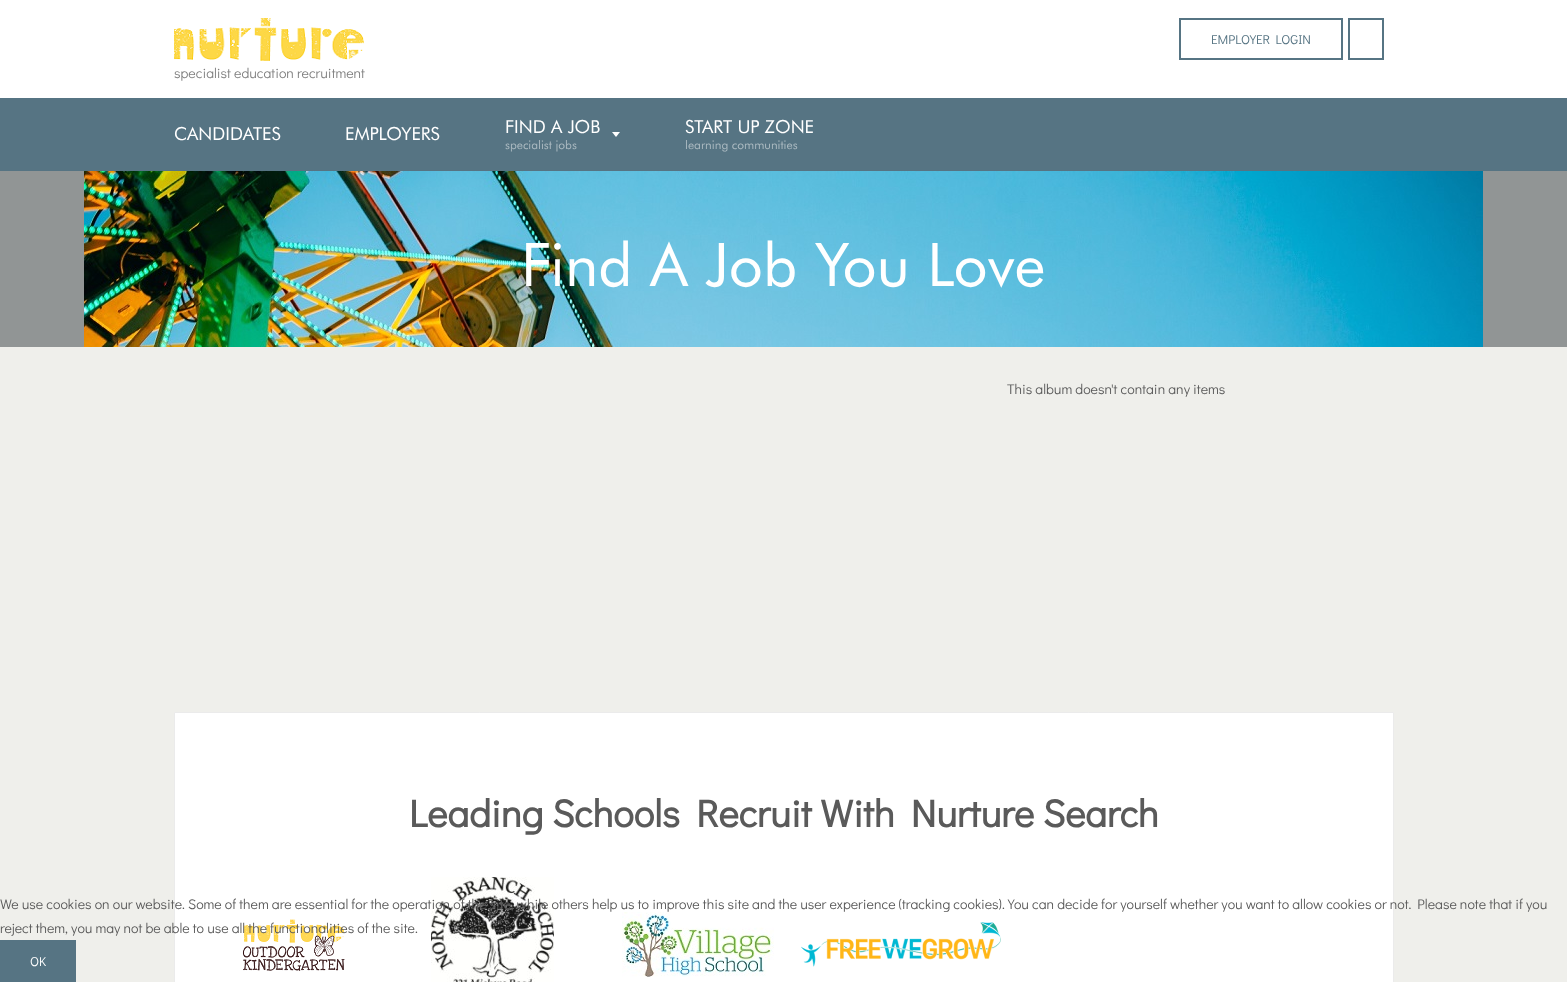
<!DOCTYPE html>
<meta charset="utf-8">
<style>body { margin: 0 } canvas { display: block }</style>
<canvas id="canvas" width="1567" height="982"></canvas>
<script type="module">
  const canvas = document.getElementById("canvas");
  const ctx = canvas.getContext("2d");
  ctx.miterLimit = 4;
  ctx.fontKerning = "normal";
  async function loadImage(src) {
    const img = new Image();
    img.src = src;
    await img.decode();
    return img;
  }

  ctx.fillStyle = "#efefeb";
  ctx.fillRect(0, 0, 1567, 982);
  ctx.fillStyle = "#ffffff";
  ctx.fillRect(0, 0, 1567, 98);
  ctx.strokeStyle = "#567483";
  ctx.lineWidth = 2;
  ctx.strokeRect(1180, 19, 162, 40);
  ctx.font = "13px Didact Gothic";
  ctx.fillStyle = "#567483";
  ctx.fillText("EMPLOYER LOGIN", 1211, 44);
  ctx.strokeRect(1349, 19, 34, 40);
  ctx.drawImage(await loadImage("img1.png"), 174, 18, 190, 43);
  ctx.font = "14px Didact Gothic";
  ctx.fillStyle = "#808080";
  ctx.fillText("specialist education recruitment", 174, 78);
  ctx.fillStyle = "#567483";
  ctx.fillRect(0, 98, 1567, 73);
  ctx.font = "18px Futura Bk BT";
  ctx.fillStyle = "#ffffff";
  ctx.fillText("CANDIDATES", 174, 140);
  ctx.fillText("EMPLOYERS", 345, 140);
  ctx.fillText("FIND A JOB", 505, 133);
  ctx.font = "12px Futura Bk BT";
  ctx.fillStyle = "#abbac1";
  ctx.fillText("specialist jobs", 505, 149);
  ctx.fillStyle = "#ffffff";
  ctx.beginPath();
  ctx.moveTo(612, 132);
  ctx.lineTo(620, 132);
  ctx.lineTo(616, 137);
  ctx.closePath();
  ctx.fill();
  ctx.font = "18px Futura Bk BT";
  ctx.fillText("START UP ZONE", 685, 133);
  ctx.font = "12px Futura Bk BT";
  ctx.fillStyle = "#abbac1";
  ctx.fillText("learning communities", 685, 149);
  ctx.fillStyle = "#919595";
  ctx.fillRect(0, 171, 1567, 176);
  ctx.drawImage(await loadImage("img2.png"), 84, 171, 1399, 176);
  ctx.font = "60px Futura Bk BT";
  ctx.fillStyle = "#ffffff";
  ctx.fillText("Find A Job You Love", 521, 286);
  ctx.font = "14px Didact Gothic";
  ctx.fillStyle = "#5a5a5a";
  ctx.fillText("This album doesn't contain any items", 1007, 394);
  ctx.fillStyle = "#ffffff";
  ctx.beginPath();
  ctx.rect(174.5, 712.5, 1219, 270);
  ctx.fill();
  ctx.strokeStyle = "#ebebeb";
  ctx.lineWidth = 1;
  ctx.stroke();
  ctx.font = "bold 38.5px Didact Gothic";
  ctx.fillStyle = "#5a5a5a";
  ctx.fillText("Leading Schools Recruit With Nurture Search", 409, 827);
  ctx.drawImage(await loadImage("img3.png"), 242, 919, 103, 52);
  ctx.drawImage(await loadImage("img4.png"), 431, 877, 123, 105);
  ctx.drawImage(await loadImage("img5.png"), 622, 912, 152, 65);
  ctx.drawImage(await loadImage("img6.png"), 801, 922, 200, 45);
  ctx.font = "14px Didact Gothic";
  ctx.fillText("We use cookies on our website. Some of them are essential for the operation of the site, while others help us to improve this site and the user experience (tracking cookies). You can decide for yourself whether you want to allow cookies or not. Please note that if you", 0, 909);
  ctx.fillText("reject them, you may not be able to use all the functionalities of the site.", 0, 933);
  ctx.fillStyle = "#567483";
  ctx.fillRect(0, 940, 76, 42);
  ctx.font = "13px Didact Gothic";
  ctx.fillStyle = "#ffffff";
  ctx.fillText("OK", 30, 966);
</script>
